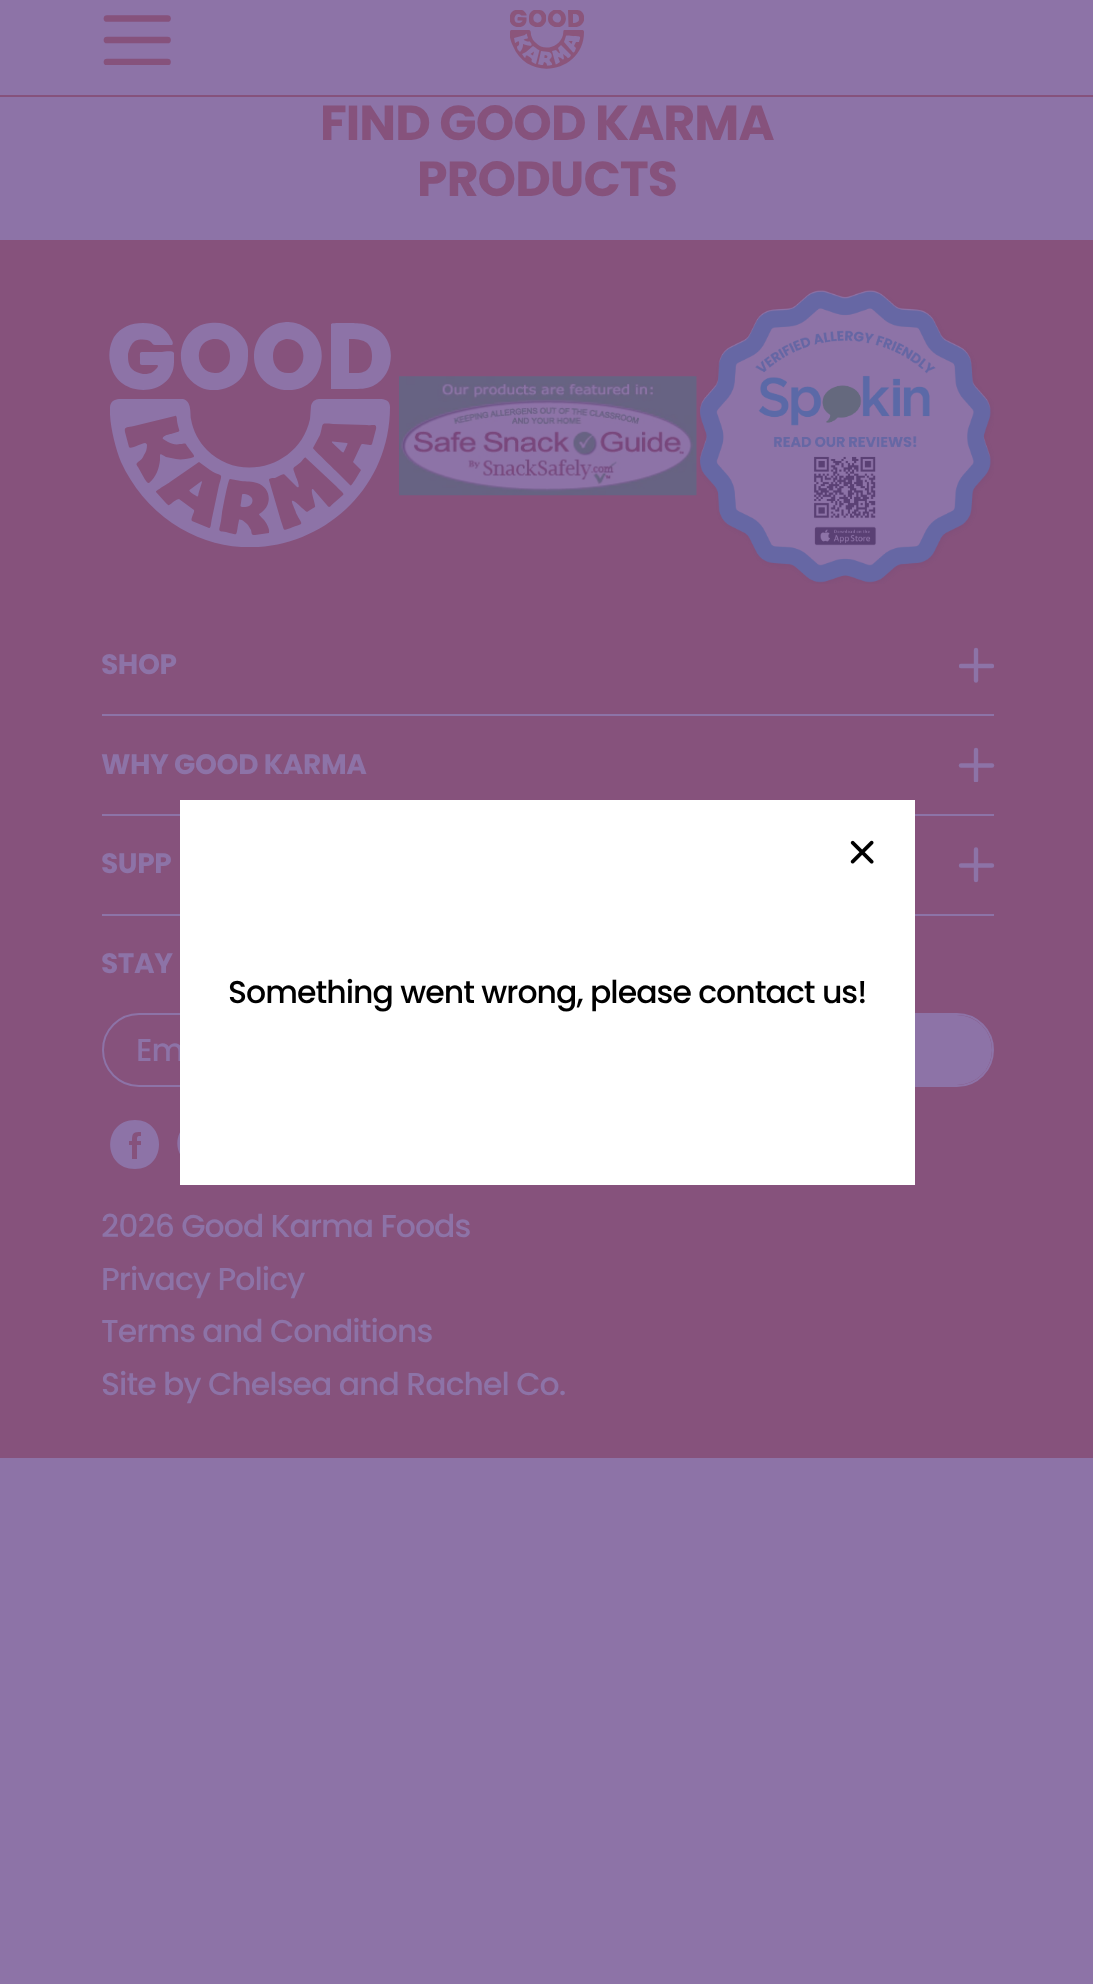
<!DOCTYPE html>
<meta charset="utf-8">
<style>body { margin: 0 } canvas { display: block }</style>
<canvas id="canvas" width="1093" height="1984"></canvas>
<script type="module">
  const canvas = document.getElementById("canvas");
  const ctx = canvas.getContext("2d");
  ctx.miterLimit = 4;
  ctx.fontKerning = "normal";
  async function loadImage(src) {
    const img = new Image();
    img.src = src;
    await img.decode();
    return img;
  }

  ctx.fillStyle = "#8d73a7";
  ctx.fillRect(0, 0, 1093, 1984);
  ctx.fillStyle = "#86527c";
  ctx.fillRect(0, 95, 1093, 2);
  ctx.beginPath();
  ctx.moveTo(107, 18.5);
  ctx.lineTo(167.5, 18.5);
  ctx.strokeStyle = "#86527c";
  ctx.lineWidth = 6.7;
  ctx.lineCap = "round";
  ctx.stroke();
  ctx.beginPath();
  ctx.moveTo(107, 40);
  ctx.lineTo(167.5, 40);
  ctx.stroke();
  ctx.save();
  ctx.beginPath();
  ctx.rect(102, 14, 70, 51);
  ctx.clip();
  ctx.beginPath();
  ctx.moveTo(107, 62);
  ctx.lineTo(167.5, 62);
  ctx.stroke();
  ctx.restore();
  ctx.save();
  ctx.beginPath();
  ctx.rect(509, 9, 18, 18);
  ctx.clip();
  ctx.fillStyle = "#8b557b";
  ctx.beginPath();
  ctx.moveTo(521.5, 15.5);
  ctx.lineTo(526.5, 15.5);
  ctx.bezierCurveTo(527.5, 14.5, 523.5, 10, 522, 10);
  ctx.lineTo(517.5, 10);
  ctx.bezierCurveTo(514.5, 10, 513, 10.5, 511, 13);
  ctx.lineTo(510, 15.5);
  ctx.lineTo(510, 21.5);
  ctx.lineTo(511, 23.5);
  ctx.bezierCurveTo(514.5, 29, 526, 28.5, 526.5, 20.5);
  ctx.lineTo(526.5, 17.5);
  ctx.lineTo(518, 17);
  ctx.bezierCurveTo(517.5, 17.5, 517.5, 19, 517.5, 19.5);
  ctx.bezierCurveTo(517.5, 21, 518, 20.5, 520, 20.5);
  ctx.bezierCurveTo(521.5, 20.5, 524, 20, 521.5, 22);
  ctx.bezierCurveTo(520, 23.5, 517, 23, 515.5, 22);
  ctx.bezierCurveTo(513.5, 19.5, 514.5, 14.5, 518, 14);
  ctx.bezierCurveTo(520.5, 14, 521, 15.5, 521.5, 15.5);
  ctx.closePath();
  ctx.fill();
  ctx.restore();
  ctx.save();
  ctx.beginPath();
  ctx.rect(528, 9, 18, 18);
  ctx.clip();
  ctx.fillStyle = "#8b557b";
  ctx.beginPath();
  ctx.moveTo(533, 26);
  ctx.bezierCurveTo(543.5, 32, 552, 16.5, 542, 10.5);
  ctx.bezierCurveTo(540.5, 9.5, 539, 10, 537.5, 10);
  ctx.bezierCurveTo(534.5, 10, 533.5, 9.5, 531, 12);
  ctx.bezierCurveTo(529, 14, 529, 15.5, 529, 18.5);
  ctx.bezierCurveTo(529, 22, 529, 24, 533, 26);
  ctx.closePath();
  ctx.moveTo(540.5, 21.5);
  ctx.bezierCurveTo(539, 23, 536, 23, 534.5, 21.5);
  ctx.bezierCurveTo(533, 20, 533, 16.5, 534.5, 15);
  ctx.bezierCurveTo(538.5, 10.5, 544, 17.5, 540.5, 21.5);
  ctx.closePath();
  ctx.fill("evenodd");
  ctx.restore();
  ctx.save();
  ctx.beginPath();
  ctx.rect(548, 9, 18, 18);
  ctx.clip();
  ctx.fillStyle = "#8b557b";
  ctx.beginPath();
  ctx.moveTo(552.5, 26);
  ctx.bezierCurveTo(556.5, 28.5, 561.5, 27.5, 564.5, 23.5);
  ctx.bezierCurveTo(567, 19.5, 566, 14, 562.5, 11.5);
  ctx.lineTo(560.5, 10);
  ctx.lineTo(553.5, 10);
  ctx.lineTo(552, 11);
  ctx.bezierCurveTo(549, 12.5, 548, 15.5, 548, 19);
  ctx.bezierCurveTo(548, 22, 549.5, 24.5, 552.5, 26);
  ctx.closePath();
  ctx.moveTo(560, 21.5);
  ctx.bezierCurveTo(559, 22.5, 558.5, 22.5, 557.5, 22.5);
  ctx.bezierCurveTo(553.5, 23, 551, 18, 554, 15);
  ctx.bezierCurveTo(558, 10.5, 563.5, 17.5, 560, 21.5);
  ctx.closePath();
  ctx.fill("evenodd");
  ctx.restore();
  ctx.save();
  ctx.beginPath();
  ctx.rect(568, 10, 16, 17);
  ctx.clip();
  ctx.fillStyle = "#8b557b";
  ctx.beginPath();
  ctx.moveTo(580, 10.5);
  ctx.bezierCurveTo(577, 9.5, 571.5, 10, 568, 10);
  ctx.lineTo(568.5, 27);
  ctx.bezierCurveTo(572, 27, 576, 28, 579.5, 26);
  ctx.bezierCurveTo(585.5, 23, 586, 14, 580, 10.5);
  ctx.closePath();
  ctx.moveTo(578, 21.5);
  ctx.bezierCurveTo(576.5, 23, 574.5, 23, 573, 23);
  ctx.lineTo(573, 14);
  ctx.bezierCurveTo(576.5, 14, 579, 14.5, 579, 18.5);
  ctx.bezierCurveTo(579, 19.5, 579, 21, 578, 21.5);
  ctx.closePath();
  ctx.fill("evenodd");
  ctx.restore();
  ctx.fillStyle = "#8b557b";
  ctx.beginPath();
  ctx.moveTo(545, 55);
  ctx.bezierCurveTo(548, 55, 548.5, 58.5, 545, 58);
  ctx.bezierCurveTo(544, 58, 544.5, 58, 544.5, 57);
  ctx.bezierCurveTo(544.5, 56.5, 544.5, 55, 545, 55);
  ctx.closePath();
  ctx.moveTo(534, 51.5);
  ctx.lineTo(533, 55.5);
  ctx.bezierCurveTo(533, 55.5, 530.5, 54, 530.5, 54);
  ctx.closePath();
  ctx.fill();
  ctx.save();
  ctx.beginPath();
  ctx.rect(510, 30, 74, 39);
  ctx.clip();
  ctx.beginPath();
  ctx.moveTo(584, 32);
  ctx.bezierCurveTo(584, 72, 528, 83, 513, 46);
  ctx.bezierCurveTo(511, 42, 509, 36, 510, 32);
  ctx.bezierCurveTo(510, 29, 513, 30, 515, 30);
  ctx.lineTo(529, 30);
  ctx.bezierCurveTo(531, 30, 531, 34, 531, 35);
  ctx.bezierCurveTo(532, 38, 533, 41, 536, 43);
  ctx.bezierCurveTo(544, 52, 560, 47, 563, 35);
  ctx.bezierCurveTo(564, 28, 562, 30, 573, 30);
  ctx.bezierCurveTo(575, 30, 584, 28, 584, 32);
  ctx.closePath();
  ctx.moveTo(520, 52);
  ctx.bezierCurveTo(522, 50, 523, 47, 523, 45);
  ctx.lineTo(523, 44);
  ctx.bezierCurveTo(525, 45, 534, 48, 531, 43);
  ctx.bezierCurveTo(528, 39, 531, 43, 526, 41);
  ctx.bezierCurveTo(520, 39, 528, 39, 528, 38);
  ctx.lineTo(527, 35);
  ctx.bezierCurveTo(527, 33, 526, 34, 525, 35);
  ctx.lineTo(514, 38);
  ctx.lineTo(515, 43);
  ctx.bezierCurveTo(516, 43, 519, 40, 519, 42);
  ctx.bezierCurveTo(520, 48, 515, 44, 518, 50);
  ctx.closePath();
  ctx.moveTo(579, 42);
  ctx.bezierCurveTo(581, 35, 581, 37, 573, 36);
  ctx.bezierCurveTo(564, 36, 567, 34, 565, 39);
  ctx.lineTo(564, 42);
  ctx.lineTo(570, 49);
  ctx.bezierCurveTo(573, 52, 573, 54, 575, 51);
  ctx.lineTo(576, 48);
  ctx.lineTo(574, 46);
  ctx.lineTo(576, 42);
  ctx.closePath();
  ctx.moveTo(571, 55);
  ctx.lineTo(561, 45);
  ctx.lineTo(558, 48);
  ctx.lineTo(560, 53);
  ctx.bezierCurveTo(559, 54, 557, 51, 557, 51);
  ctx.lineTo(556, 50);
  ctx.lineTo(552, 51);
  ctx.lineTo(555, 62);
  ctx.bezierCurveTo(556, 64, 555, 65, 557, 64);
  ctx.lineTo(560, 62);
  ctx.lineTo(558, 57);
  ctx.lineTo(561, 58);
  ctx.bezierCurveTo(566, 63, 563, 54, 563, 54);
  ctx.lineTo(567, 57);
  ctx.bezierCurveTo(568, 59, 568, 58, 570, 57);
  ctx.closePath();
  ctx.moveTo(536, 64);
  ctx.lineTo(539, 52);
  ctx.bezierCurveTo(540, 49, 539, 51, 536, 48);
  ctx.lineTo(533, 46);
  ctx.lineTo(526, 52);
  ctx.lineTo(522, 54);
  ctx.lineTo(524, 57);
  ctx.bezierCurveTo(527, 60, 524, 54, 528, 56);
  ctx.bezierCurveTo(537, 61, 526, 60, 536, 64);
  ctx.closePath();
  ctx.moveTo(552, 65);
  ctx.bezierCurveTo(553, 62, 548, 61, 550, 59);
  ctx.bezierCurveTo(553, 57, 552, 53, 549, 52);
  ctx.lineTo(541, 51);
  ctx.lineTo(539, 60);
  ctx.bezierCurveTo(538, 65, 537, 64, 541, 65);
  ctx.lineTo(543, 65);
  ctx.lineTo(544, 62);
  ctx.bezierCurveTo(550, 64, 543, 67, 552, 65);
  ctx.closePath();
  ctx.fill("evenodd");
  ctx.restore();
  ctx.beginPath();
  ctx.moveTo(572.5, 41);
  ctx.lineTo(572, 42.5);
  ctx.bezierCurveTo(571.5, 44.5, 571.5, 44, 570, 42.5);
  ctx.lineTo(568.5, 41);
  ctx.closePath();
  ctx.fill();
  ctx.letterSpacing = "-0.95px";
  ctx.font = "bold 49px Poppins";
  ctx.fillStyle = "#86527c";
  ctx.fillText("FIND GOOD KARMA", 320, 140);
  ctx.fillText("PRODUCTS", 417, 196);
  ctx.fillRect(0, 240, 1093, 1218);
  ctx.fillStyle = "#8d73a7";
  ctx.beginPath();
  ctx.moveTo(155, 345);
  ctx.lineTo(172, 345);
  ctx.bezierCurveTo(174, 344, 172, 340, 171, 339);
  ctx.bezierCurveTo(166, 327, 155, 323, 143, 323);
  ctx.bezierCurveTo(131, 323, 121, 327, 114, 337);
  ctx.bezierCurveTo(109, 346, 108, 357, 111, 366);
  ctx.bezierCurveTo(119, 400, 174, 397, 174, 362);
  ctx.lineTo(174, 353);
  ctx.bezierCurveTo(172, 350, 164, 352, 162, 352);
  ctx.lineTo(147, 352);
  ctx.bezierCurveTo(139, 352, 140, 351, 140, 358);
  ctx.bezierCurveTo(140, 366, 139, 365, 147, 365);
  ctx.lineTo(155, 365);
  ctx.bezierCurveTo(158, 365, 159, 365, 157, 368);
  ctx.bezierCurveTo(155, 370, 153, 372, 151, 373);
  ctx.bezierCurveTo(148, 374, 145, 374, 143, 374);
  ctx.bezierCurveTo(139, 373, 135, 372, 132, 369);
  ctx.bezierCurveTo(128, 365, 128, 359, 128, 354);
  ctx.bezierCurveTo(129, 349, 131, 344, 135, 341);
  ctx.bezierCurveTo(140, 339, 147, 339, 151, 342);
  ctx.bezierCurveTo(152, 343, 153, 345, 155, 345);
  ctx.closePath();
  ctx.fill();
  ctx.save();
  ctx.beginPath();
  ctx.rect(180, 322, 69, 68);
  ctx.clip();
  ctx.beginPath();
  ctx.moveTo(198, 386);
  ctx.bezierCurveTo(213, 395, 235, 389, 244, 374);
  ctx.bezierCurveTo(247, 368, 248, 362, 248, 356);
  ctx.lineTo(248, 350);
  ctx.bezierCurveTo(248, 341, 239, 331, 232, 327);
  ctx.bezierCurveTo(225, 323, 218, 322, 210, 323);
  ctx.bezierCurveTo(178, 326, 170, 370, 198, 386);
  ctx.closePath();
  ctx.moveTo(226, 368);
  ctx.bezierCurveTo(223, 371, 220, 373, 216, 373);
  ctx.bezierCurveTo(200, 374, 194, 354, 203, 344);
  ctx.bezierCurveTo(206, 341, 209, 340, 213, 339);
  ctx.bezierCurveTo(224, 338, 230, 346, 230, 356);
  ctx.bezierCurveTo(230, 361, 229, 365, 226, 368);
  ctx.closePath();
  ctx.fill("evenodd");
  ctx.restore();
  ctx.save();
  ctx.beginPath();
  ctx.rect(254, 322, 68, 68);
  ctx.clip();
  ctx.beginPath();
  ctx.moveTo(271, 386);
  ctx.bezierCurveTo(242, 369, 252, 324, 286, 322);
  ctx.bezierCurveTo(292, 322, 299, 323, 305, 327);
  ctx.bezierCurveTo(333, 342, 324, 387, 292, 390);
  ctx.bezierCurveTo(285, 391, 277, 389, 271, 386);
  ctx.closePath();
  ctx.moveTo(299, 368);
  ctx.bezierCurveTo(297, 371, 293, 373, 290, 373);
  ctx.bezierCurveTo(279, 374, 273, 366, 273, 356);
  ctx.bezierCurveTo(273, 352, 274, 347, 277, 344);
  ctx.bezierCurveTo(279, 341, 283, 340, 286, 339);
  ctx.bezierCurveTo(303, 338, 308, 358, 299, 368);
  ctx.closePath();
  ctx.fill("evenodd");
  ctx.restore();
  ctx.save();
  ctx.beginPath();
  ctx.rect(330, 323, 61, 67);
  ctx.clip();
  ctx.beginPath();
  ctx.moveTo(375, 328);
  ctx.bezierCurveTo(372, 326, 368, 325, 364, 324);
  ctx.bezierCurveTo(360, 323, 332, 322, 331, 324);
  ctx.lineTo(331, 389);
  ctx.lineTo(352, 389);
  ctx.bezierCurveTo(360, 389, 366, 389, 373, 386);
  ctx.bezierCurveTo(396, 375, 397, 339, 375, 328);
  ctx.closePath();
  ctx.moveTo(368, 369);
  ctx.bezierCurveTo(363, 374, 356, 373, 349, 373);
  ctx.lineTo(349, 339);
  ctx.bezierCurveTo(362, 339, 372, 341, 372, 356);
  ctx.bezierCurveTo(372, 361, 371, 366, 368, 369);
  ctx.closePath();
  ctx.fill("evenodd");
  ctx.restore();
  ctx.beginPath();
  ctx.moveTo(243, 494);
  ctx.bezierCurveTo(245.5, 494, 248.5, 494.5, 250.5, 496.5);
  ctx.bezierCurveTo(253.5, 498.5, 253, 503.5, 250, 505.5);
  ctx.bezierCurveTo(248, 507, 246, 507, 243.5, 507);
  ctx.bezierCurveTo(239.5, 507, 240.5, 506, 241, 502.5);
  ctx.lineTo(242, 495);
  ctx.bezierCurveTo(242, 494.5, 242.5, 494, 243, 494);
  ctx.closePath();
  ctx.fill();
  ctx.beginPath();
  ctx.moveTo(201, 481.5);
  ctx.bezierCurveTo(201.5, 481, 202, 481.5, 202, 482);
  ctx.lineTo(198.5, 493.5);
  ctx.bezierCurveTo(198.5, 495, 198, 497, 197, 496.5);
  ctx.bezierCurveTo(196, 495.5, 188, 491.5, 189.5, 490);
  ctx.closePath();
  ctx.fill();
  ctx.save();
  ctx.beginPath();
  ctx.rect(110, 399, 280, 148);
  ctx.clip();
  ctx.beginPath();
  ctx.moveTo(390, 407);
  ctx.bezierCurveTo(390, 519, 265, 586, 172, 523);
  ctx.bezierCurveTo(150, 508, 132, 486, 121, 462);
  ctx.bezierCurveTo(115, 447, 109, 423, 110, 407);
  ctx.bezierCurveTo(111, 397, 122, 399, 129, 399);
  ctx.lineTo(183, 399);
  ctx.bezierCurveTo(192, 401, 190, 414, 191, 419);
  ctx.bezierCurveTo(193, 431, 199, 442, 207, 450);
  ctx.bezierCurveTo(241, 484, 300, 466, 310, 419);
  ctx.lineTo(311, 406);
  ctx.bezierCurveTo(313, 397, 322, 399, 329, 399);
  ctx.lineTo(372, 399);
  ctx.bezierCurveTo(378, 399, 390, 397, 390, 407);
  ctx.closePath();
  ctx.moveTo(149, 483);
  ctx.bezierCurveTo(156, 477, 159, 469, 160, 460);
  ctx.lineTo(160, 455);
  ctx.bezierCurveTo(160, 453, 163, 455, 166, 457);
  ctx.lineTo(176, 459);
  ctx.bezierCurveTo(181, 460, 186, 459, 191, 458);
  ctx.bezierCurveTo(194, 457, 195, 457, 193, 454);
  ctx.lineTo(187, 446);
  ctx.bezierCurveTo(185, 442, 185, 444, 180, 444);
  ctx.bezierCurveTo(176, 445, 172, 444, 168, 442);
  ctx.lineTo(163, 439);
  ctx.bezierCurveTo(161, 436, 170, 434, 171, 434);
  ctx.bezierCurveTo(183, 430, 179, 434, 177, 421);
  ctx.bezierCurveTo(177, 420, 177, 415, 175, 416);
  ctx.lineTo(134, 426);
  ctx.bezierCurveTo(127, 428, 124, 426, 125, 432);
  ctx.lineTo(129, 447);
  ctx.bezierCurveTo(130, 450, 142, 443, 145, 443);
  ctx.bezierCurveTo(146, 443, 147, 444, 147, 445);
  ctx.bezierCurveTo(147, 449, 146, 452, 144, 455);
  ctx.bezierCurveTo(143, 458, 141, 460, 138, 462);
  ctx.bezierCurveTo(136, 464, 136, 464, 138, 467);
  ctx.lineTo(143, 476);
  ctx.bezierCurveTo(143, 476, 147, 484, 149, 483);
  ctx.closePath();
  ctx.moveTo(372, 444);
  ctx.lineTo(376, 429);
  ctx.bezierCurveTo(377, 423, 373, 426, 367, 425);
  ctx.lineTo(333, 424);
  ctx.bezierCurveTo(319, 423, 324, 423, 320, 435);
  ctx.lineTo(313, 448);
  ctx.bezierCurveTo(313, 449, 335, 470, 338, 473);
  ctx.lineTo(350, 485);
  ctx.bezierCurveTo(351, 487, 354, 481, 355, 480);
  ctx.lineTo(361, 470);
  ctx.lineTo(353, 462);
  ctx.lineTo(361, 445);
  ctx.bezierCurveTo(362, 442, 371, 447, 372, 444);
  ctx.closePath();
  ctx.moveTo(343, 495);
  ctx.bezierCurveTo(345, 493, 338, 489, 337, 487);
  ctx.lineTo(306, 458);
  ctx.bezierCurveTo(305, 456, 302, 461, 301, 462);
  ctx.bezierCurveTo(292, 470, 292, 465, 296, 477);
  ctx.bezierCurveTo(297, 479, 301, 489, 297, 487);
  ctx.lineTo(286, 476);
  ctx.bezierCurveTo(284, 474, 284, 474, 281, 475);
  ctx.lineTo(275, 478);
  ctx.bezierCurveTo(273, 478, 269, 478, 269, 480);
  ctx.lineTo(281, 521);
  ctx.bezierCurveTo(285, 532, 282, 531, 293, 527);
  ctx.bezierCurveTo(305, 523, 302, 525, 296, 513);
  ctx.bezierCurveTo(296, 511, 291, 502, 292, 501);
  ctx.bezierCurveTo(293, 499, 301, 507, 302, 508);
  ctx.bezierCurveTo(307, 512, 306, 513, 310, 510);
  ctx.lineTo(315, 507);
  ctx.bezierCurveTo(316, 505, 309, 488, 313, 489);
  ctx.lineTo(326, 504);
  ctx.bezierCurveTo(330, 509, 329, 507, 335, 502);
  ctx.closePath();
  ctx.moveTo(209, 528);
  ctx.bezierCurveTo(211, 529, 211, 522, 212, 518);
  ctx.lineTo(219, 485);
  ctx.bezierCurveTo(223, 471, 222, 478, 210, 470);
  ctx.lineTo(199, 462);
  ctx.lineTo(170, 482);
  ctx.bezierCurveTo(169, 483, 155, 491, 156, 492);
  ctx.lineTo(165, 502);
  ctx.bezierCurveTo(169, 506, 168, 506, 172, 503);
  ctx.bezierCurveTo(173, 502, 177, 499, 179, 499);
  ctx.lineTo(194, 510);
  ctx.bezierCurveTo(195, 512, 190, 519, 192, 521);
  ctx.closePath();
  ctx.moveTo(269, 533);
  ctx.lineTo(269, 532);
  ctx.bezierCurveTo(270, 529, 265, 520, 262, 518);
  ctx.bezierCurveTo(258, 513, 258, 515, 262, 512);
  ctx.bezierCurveTo(273, 503, 270, 487, 257, 483);
  ctx.bezierCurveTo(252, 481, 246, 482, 241, 481);
  ctx.lineTo(230, 479);
  ctx.bezierCurveTo(228, 479, 223, 508, 222, 513);
  ctx.lineTo(221, 521);
  ctx.bezierCurveTo(219, 532, 217, 531, 226, 532);
  ctx.bezierCurveTo(238, 535, 236, 537, 238, 525);
  ctx.lineTo(239, 520);
  ctx.bezierCurveTo(239, 519, 241, 520, 242, 520);
  ctx.bezierCurveTo(244, 521, 246, 523, 248, 525);
  ctx.lineTo(251, 530);
  ctx.bezierCurveTo(252, 534, 251, 535, 255, 535);
  ctx.closePath();
  ctx.fill("evenodd");
  ctx.restore();
  ctx.beginPath();
  ctx.moveTo(347, 443);
  ctx.bezierCurveTo(348.5, 443, 346.5, 446, 345.5, 448.5);
  ctx.lineTo(344, 451.5);
  ctx.bezierCurveTo(343.5, 453, 343, 452.5, 341.5, 451.5);
  ctx.lineTo(333, 443.5);
  ctx.bezierCurveTo(332.5, 443, 331, 441.5, 332.5, 441.5);
  ctx.closePath();
  ctx.fill();
  ctx.drawImage(await loadImage("img1.png"), 399, 376, 298, 120);
  ctx.drawImage(await loadImage("img2.png"), 699, 290, 295, 294);
  ctx.fillRect(102, 714, 892, 2);
  ctx.letterSpacing = "-0.4px";
  ctx.font = "bold 28px Poppins";
  ctx.fillText("SHOP", 101, 674);
  ctx.save();
  ctx.beginPath();
  ctx.rect(959, 648, 35, 35);
  ctx.clip();
  ctx.beginPath();
  ctx.moveTo(992, 666);
  ctx.lineTo(961, 666);
  ctx.strokeStyle = "#8d73a7";
  ctx.lineWidth = 4.4;
  ctx.stroke();
  ctx.restore();
  ctx.beginPath();
  ctx.moveTo(976, 680.5);
  ctx.lineTo(976, 650);
  ctx.strokeStyle = "#8d73a7";
  ctx.lineWidth = 4.4;
  ctx.stroke();
  ctx.fillRect(102, 814, 892, 2);
  ctx.fillText("WHY GOOD KARMA", 101, 774);
  ctx.beginPath();
  ctx.moveTo(992, 765.5);
  ctx.lineTo(961, 765.5);
  ctx.stroke();
  ctx.save();
  ctx.beginPath();
  ctx.rect(959, 747, 35, 35);
  ctx.clip();
  ctx.beginPath();
  ctx.moveTo(976, 780.5);
  ctx.lineTo(976, 750);
  ctx.stroke();
  ctx.restore();
  ctx.fillRect(102, 914, 892, 2);
  ctx.fillText("SUPP", 101, 873);
  ctx.beginPath();
  ctx.moveTo(992, 865.5);
  ctx.lineTo(961, 865.5);
  ctx.moveTo(976, 880);
  ctx.lineTo(976, 849.5);
  ctx.stroke();
  ctx.fillText("STAY", 101, 973);
  ctx.beginPath();
  ctx.roundRect(103, 1014, 890, 72, 36);
  ctx.lineWidth = 2;
  ctx.stroke();
  ctx.letterSpacing = "-0.95px";
  ctx.font = "500 31.5px Poppins";
  ctx.fillText("Em", 136, 1061);
  ctx.beginPath();
  ctx.roundRect(691, 1015, 301, 70, 35);
  ctx.fill();
  ctx.beginPath();
  ctx.moveTo(135, 1120);
  ctx.bezierCurveTo(102, 1120, 102, 1169, 135, 1169);
  ctx.bezierCurveTo(167, 1169, 167, 1120, 135, 1120);
  ctx.closePath();
  ctx.moveTo(137, 1145);
  ctx.lineTo(137, 1159);
  ctx.lineTo(132, 1159);
  ctx.lineTo(132, 1145);
  ctx.lineTo(129, 1145);
  ctx.lineTo(129, 1141);
  ctx.lineTo(132, 1141);
  ctx.bezierCurveTo(132, 1132, 134, 1132, 141, 1132);
  ctx.lineTo(141, 1136);
  ctx.bezierCurveTo(137, 1136, 137, 1136, 137, 1141);
  ctx.lineTo(141, 1141);
  ctx.lineTo(141, 1145);
  ctx.closePath();
  ctx.fill("evenodd");
  ctx.drawImage(await loadImage("img3.png"), 177, 1132, 3, 22);
  ctx.fillText("2026 Good Karma Foods", 101, 1237);
  ctx.fillText("Privacy Policy", 101, 1290);
  ctx.fillText("Terms and Conditions", 101, 1342);
  ctx.fillText("Site by Chelsea and Rachel Co.", 101, 1395);
  ctx.fillStyle = "#ffffff";
  ctx.fillRect(180, 800, 735, 385);
  ctx.drawImage(await loadImage("img4.png"), 850, 840, 24, 24);
  ctx.fillStyle = "#000000";
  ctx.fillText("Something went wrong, please contact us!", 228, 1003);
</script>
